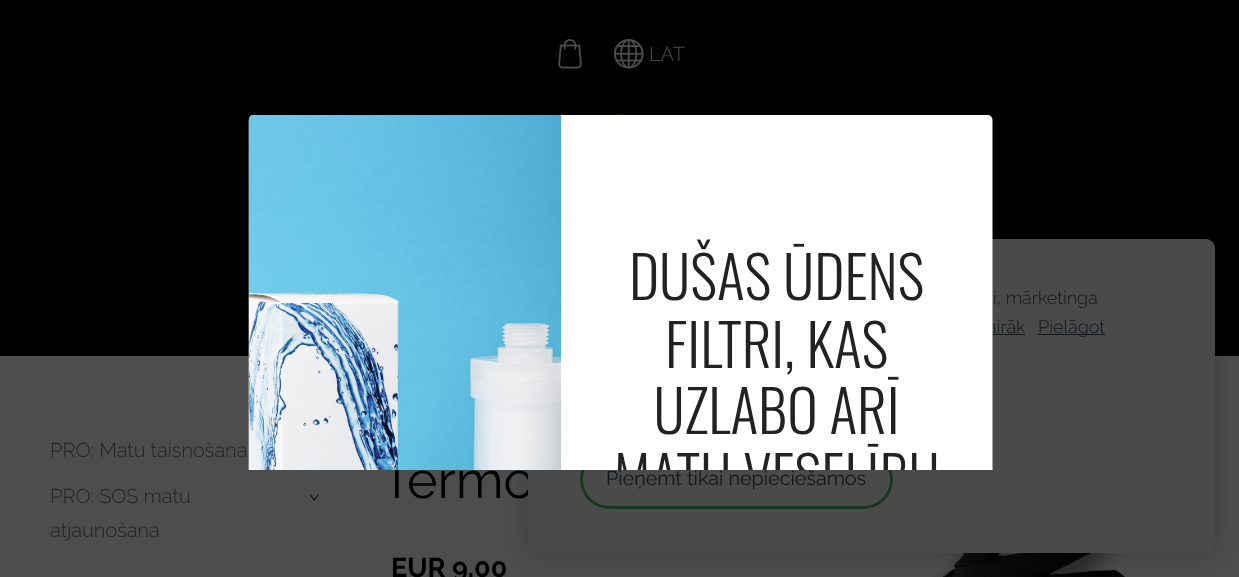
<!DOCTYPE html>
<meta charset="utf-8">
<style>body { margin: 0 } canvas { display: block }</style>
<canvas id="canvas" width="1239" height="577"></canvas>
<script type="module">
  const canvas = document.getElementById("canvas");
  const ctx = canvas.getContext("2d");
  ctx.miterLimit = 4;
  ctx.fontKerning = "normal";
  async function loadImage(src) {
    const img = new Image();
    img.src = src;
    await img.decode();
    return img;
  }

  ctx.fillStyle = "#4d4d4d";
  ctx.fillRect(0, 0, 1239, 577);
  ctx.fillStyle = "#000000";
  ctx.fillRect(0, 0, 1239, 356);
  ctx.drawImage(await loadImage("img1.png"), 558, 39, 24, 30);
  ctx.drawImage(await loadImage("img2.png"), 614, 39, 30, 30);
  ctx.font = "300 20px Raleway";
  ctx.fillStyle = "#4d4d4d";
  ctx.fillText("LAT", 649, 61);
  ctx.drawImage(await loadImage("img3.png"), 612, 114, 16, 1);
  ctx.fillStyle = "#1f2226";
  ctx.fillText("PRO: Matu taisnošana", 50, 457);
  ctx.fillText("PRO: SOS matu", 50, 503);
  ctx.fillText("atjaunošana", 50, 537);
  ctx.font = "300 24px Raleway";
  ctx.fillStyle = "#000000";
  ctx.save();
  ctx.translate(308, 493);
  ctx.rotate(90 * Math.PI / 180);
  ctx.fillText("›", 0, 0);
  ctx.restore();
  ctx.font = "52px Raleway";
  ctx.fillText("Termo", 381, 498);
  ctx.font = "bold 27px Raleway";
  ctx.fillText("EUR 9,00", 391, 577);
  ctx.drawImage(await loadImage("img4.png"), 933, 553, 193, 24);
  ctx.fillStyle = "rgba(0, 0, 0, 0.2)";
  ctx.filter = "blur(10.5px)";
  ctx.beginPath();
  ctx.roundRect(528, 239, 687, 314, 9);
  ctx.fill();
  ctx.filter = "none";
  ctx.fillStyle = "#4a4a4b";
  ctx.beginPath();
  ctx.roundRect(528, 239, 687, 314, 9);
  ctx.fill();
  ctx.font = "300 18px Raleway";
  ctx.fillStyle = "#131619";
  ctx.fillText("airāk", 987, 333);
  ctx.fillRect(992, 334, 33, 1);
  ctx.beginPath();
  ctx.roundRect(581.5, 451.5, 310, 56, 28);
  ctx.strokeStyle = "#17381e";
  ctx.lineWidth = 3;
  ctx.stroke();
  ctx.drawImage(await loadImage("img5.png"), 248, 115, 745, 355);
  ctx.fillText("i, mārketinga", 993, 304);
  ctx.fillRect(1038, 334, 67, 1);
  ctx.fillText("Pielāgot", 1038, 333);
  ctx.font = "19.75px Raleway";
  ctx.fillText("Pieņemt tikai nepieciešamos", 606, 485);
</script>
